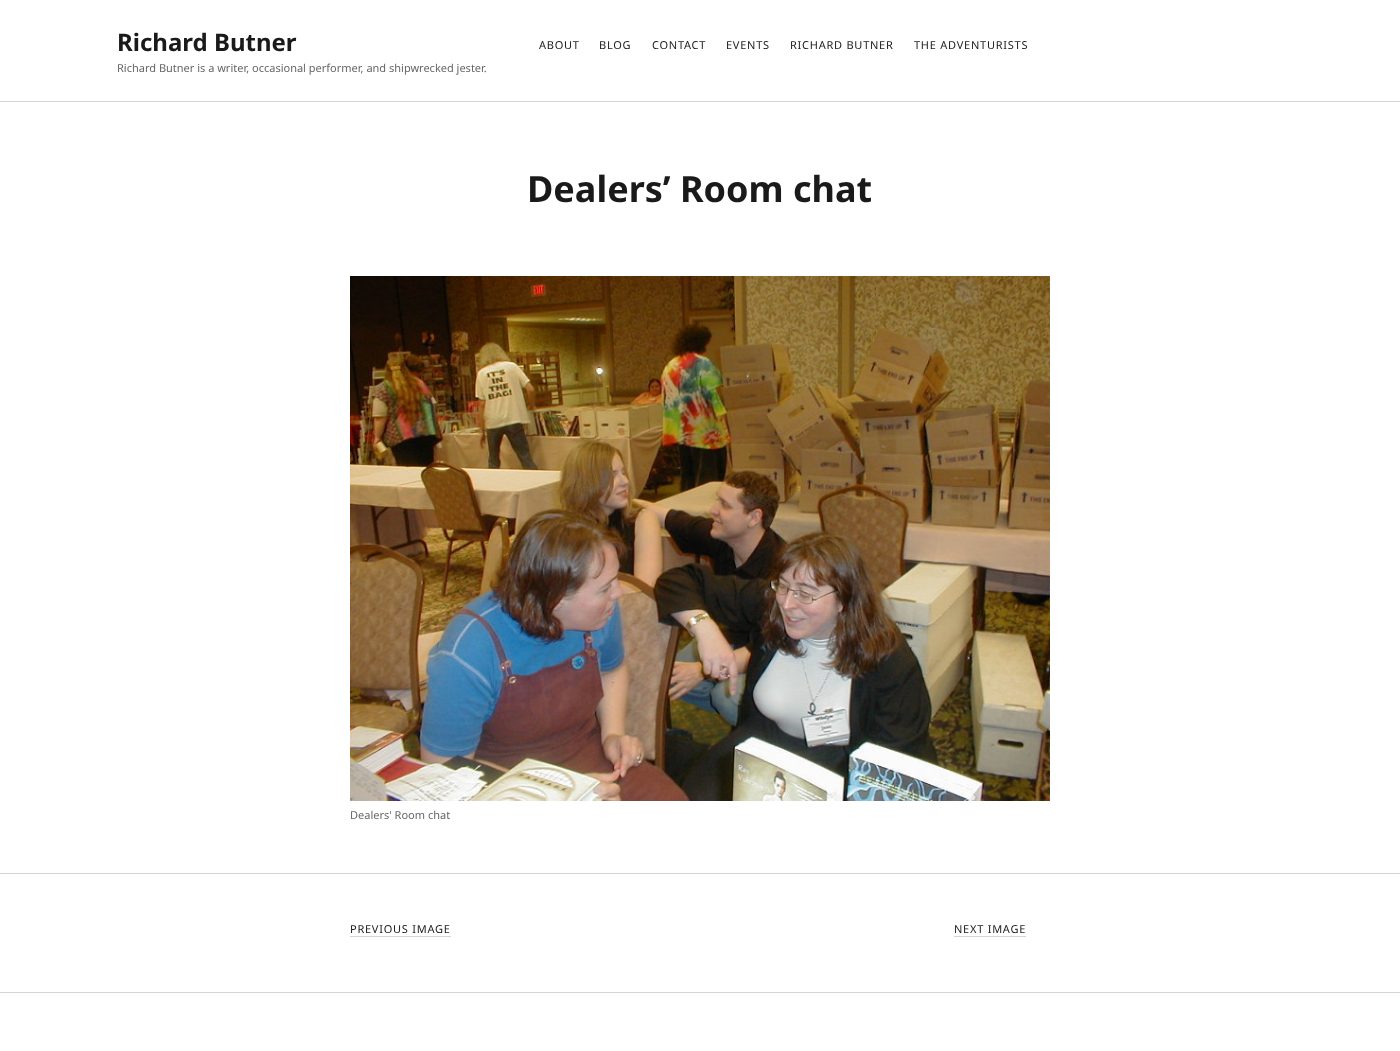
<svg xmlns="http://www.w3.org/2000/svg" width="1400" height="1051">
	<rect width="100%" height="100%" fill="#FFFFFF" />
	<text x="117" y="51" font-family="Noto Sans" font-size="24" font-weight="700" fill="#1A1A1A">Richard Butner</text>
	<text x="117" y="72" font-family="Noto Sans" font-size="11" fill="#666666">Richard Butner is a writer, occasional performer, and shipwrecked jester.</text>
	<g font-family="Noto Sans" font-size="11" letter-spacing="0.75" fill="#1A1A1A">
		<text x="539" y="49">ABOUT</text>
		<text x="599" y="49">BLOG</text>
		<text x="652" y="49">CONTACT</text>
		<text x="726" y="49">EVENTS</text>
		<text x="790" y="49">RICHARD BUTNER</text>
		<text x="914" y="49">THE ADVENTURISTS</text>
	</g>
	<rect x="0" y="101" width="1400" height="1" fill="#D4D4D4" />
	<text x="527" y="202" font-family="Noto Sans" font-size="36" font-weight="700" fill="#1A1A1A">Dealers’ Room chat</text>
	<image x="350" y="276" width="700" height="525" href="assets/img1.png" />
	<text x="350" y="819" font-family="Noto Sans" font-size="11" fill="#666666">Dealers' Room chat</text>
	<rect x="0" y="873" width="1400" height="1" fill="#D4D4D4" />
	<text x="350" y="933" font-family="Noto Sans" font-size="11" letter-spacing="0.75" fill="#1A1A1A">PREVIOUS IMAGE</text>
	<rect x="350" y="936" width="101" height="1" fill="#D4D4D4" />
	<text x="954" y="933" font-family="Noto Sans" font-size="11" letter-spacing="0.75" fill="#1A1A1A">NEXT IMAGE</text>
	<rect x="954" y="936" width="72" height="1" fill="#D4D4D4" />
	<rect x="0" y="992" width="1400" height="1" fill="#D4D4D4" />
</svg>
